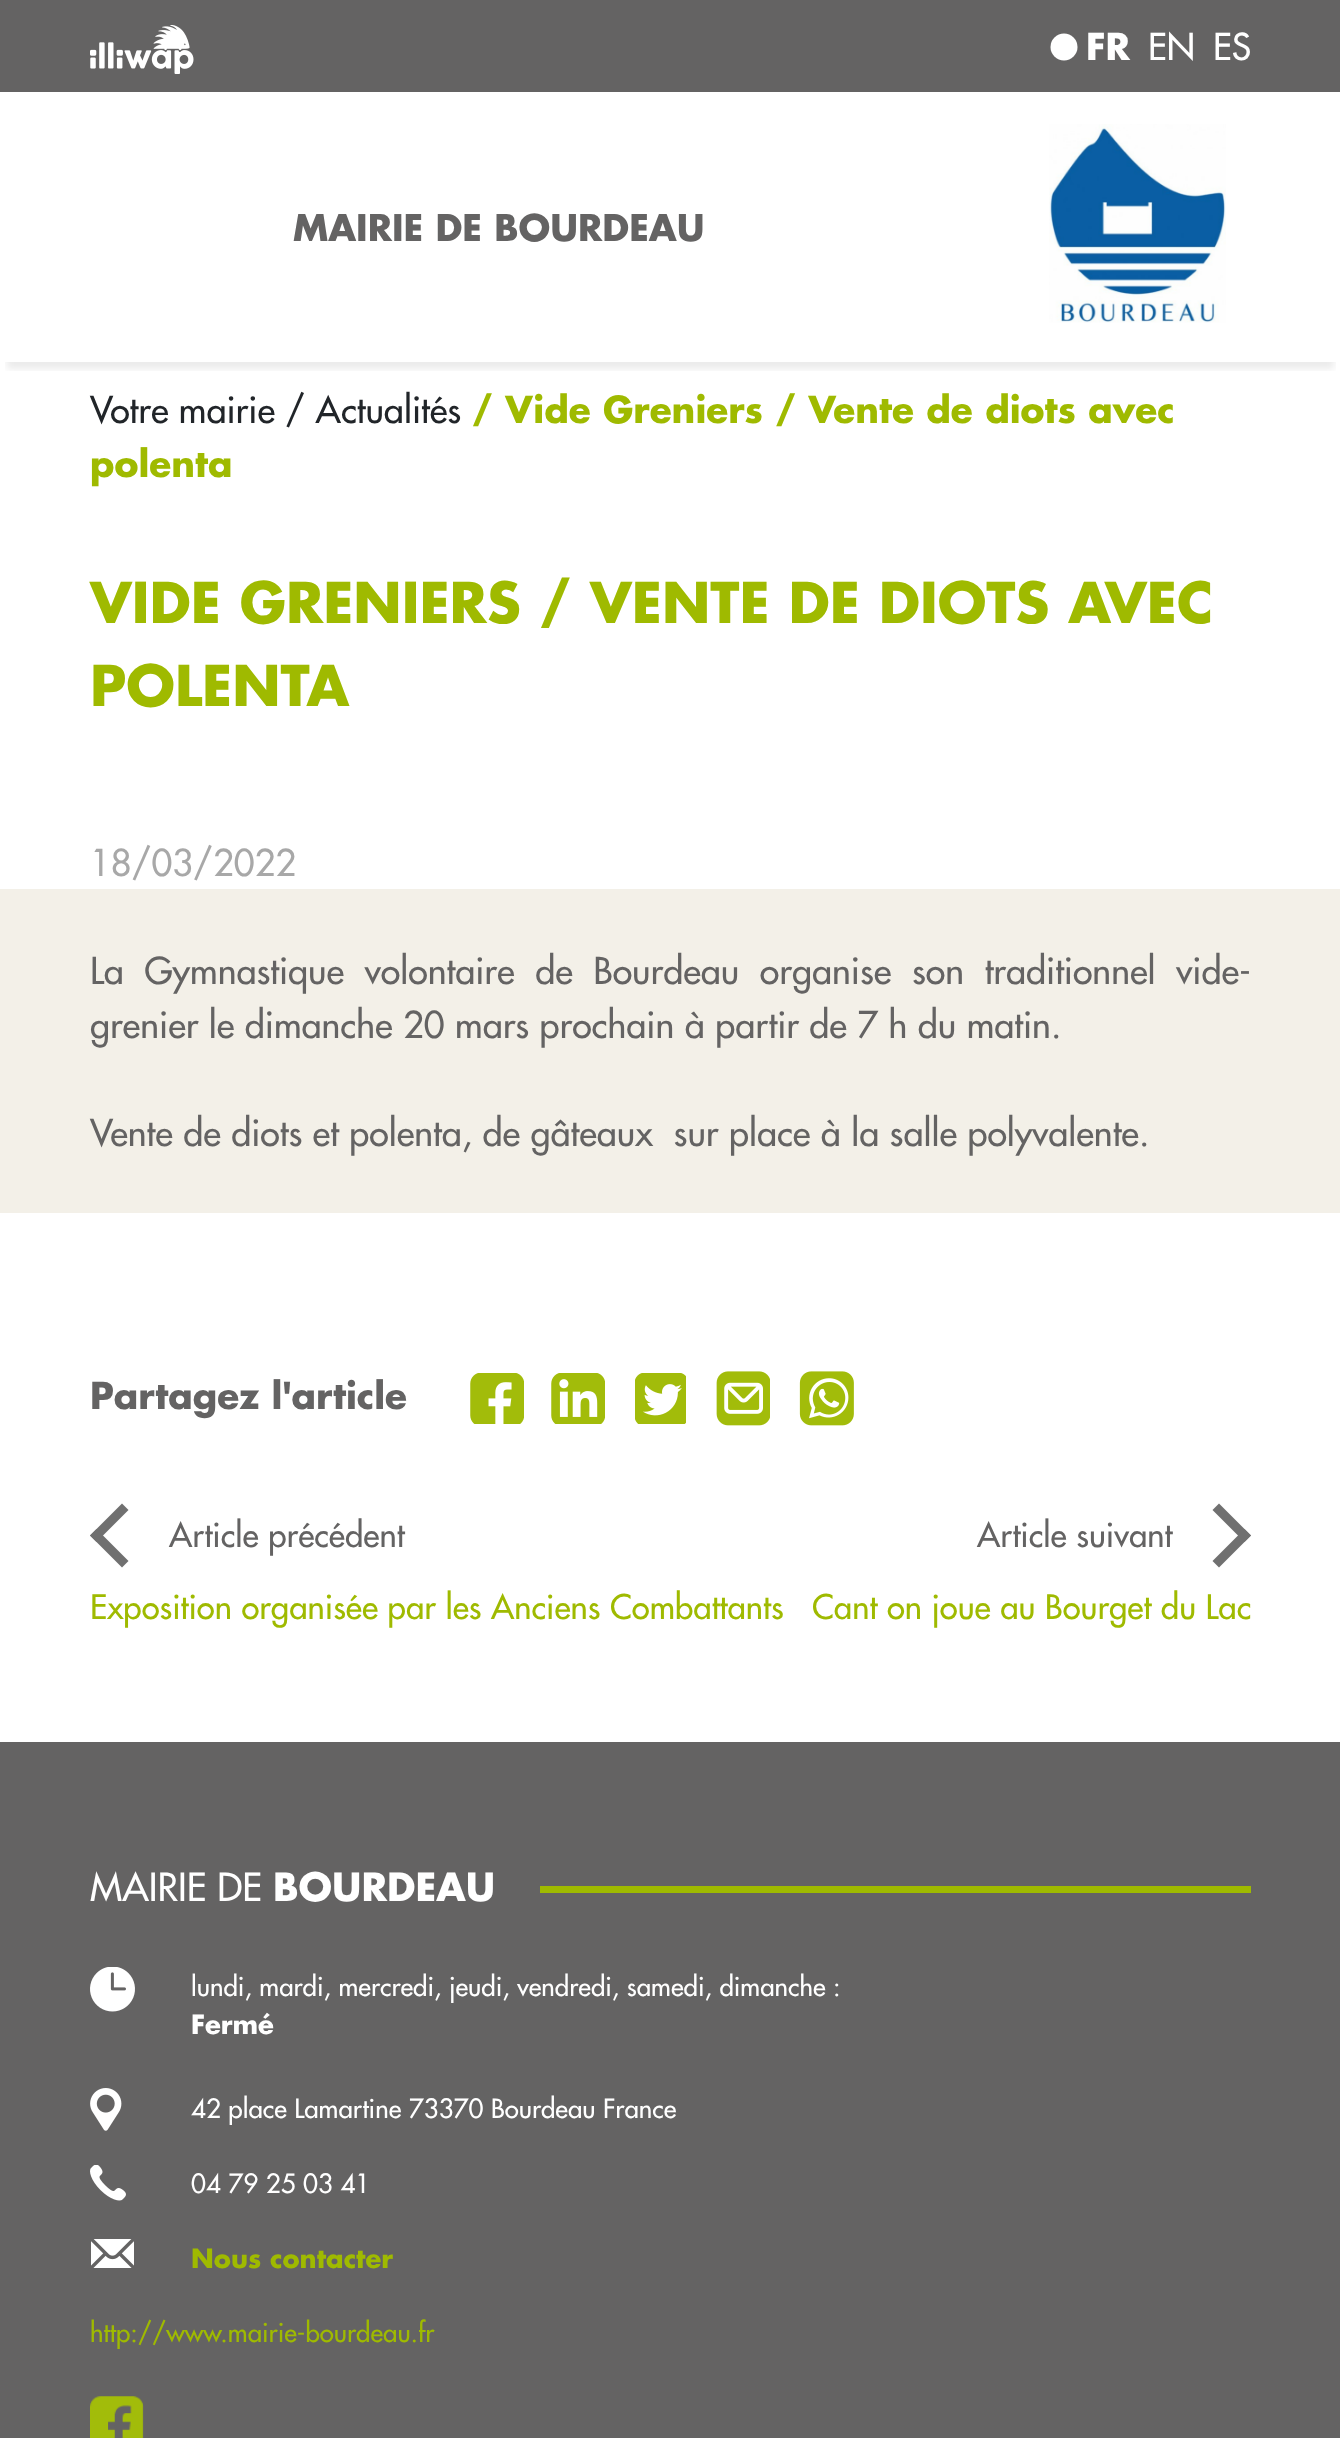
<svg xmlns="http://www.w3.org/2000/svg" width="1340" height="2438">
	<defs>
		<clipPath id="clip1"><rect x="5" y="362" width="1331" height="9" /></clipPath>
	</defs>
	<rect width="100%" height="100%" fill="#FFFFFF" />
	<g clip-path="url(#clip1)">
		<rect x="7" y="20" width="1327" height="349" fill="#000000" fill-opacity="0.08" filter="blur(3.5px)" />
	</g>
	<rect x="0" y="0" width="1340" height="92" fill="#646363" />
	<image x="90" y="25" width="104" height="49" href="assets/img1.png" />
	<circle cx="1064" cy="47" r="13.5" fill="#FFFFFF" />
	<text x="1086" y="60" font-family="Futura" font-size="36" font-weight="700" fill="#FFFFFF">FR</text>
	<g font-family="Futura" font-size="36" fill="#FFFFFF">
		<text x="1148" y="60">EN</text>
		<text x="1213" y="60">ES</text>
	</g>
	<text x="293" y="241" font-family="Futura" font-size="35.75" font-weight="700" fill="#646363">MAIRIE DE BOURDEAU</text>
	<image x="1049" y="124" width="177" height="199" href="assets/img2.png" />
	<text x="90" y="423" font-family="Futura" font-size="36" fill="#212529">Votre mairie / Actualités</text>
	<g font-family="Futura" font-size="36" font-weight="700" fill="#9FBA00">
		<text x="472" y="423">/ Vide Greniers / Vente de diots avec</text>
		<text x="90" y="477">polenta</text>
	</g>
	<g font-family="Futura" font-size="54.85" font-weight="700" fill="#9FBA00">
		<text x="90" y="623">VIDE GRENIERS / VENTE DE DIOTS AVEC</text>
		<text x="90" y="706">POLENTA</text>
	</g>
	<text x="90" y="876" font-family="Futura" font-size="36" fill="#A8A8A8">18/03/2022</text>
	<rect x="0" y="889" width="1340" height="324" fill="#F3F0E8" />
	<g font-family="Futura" font-size="36" fill="#646363">
		<text x="90" y="984" word-spacing="10.25">La Gymnastique volontaire de Bourdeau organise son traditionnel vide-</text>
		<text x="90" y="1038">grenier le dimanche 20 mars prochain à partir de 7 h du matin.</text>
		<text x="90" y="1146" xml:space="preserve">Vente de diots et polenta, de gâteaux  sur place à la salle polyvalente.</text>
	</g>
	<text x="90" y="1409" font-family="Futura" font-size="36" font-weight="700" fill="#646363">Partagez l'article</text>
	<image x="470" y="1373" width="54" height="51" href="assets/img3.png" />
	<image x="551" y="1373" width="54" height="51" href="assets/img4.png" />
	<image x="635" y="1373" width="51" height="51" href="assets/img5.png" />
	<image x="716" y="1371" width="54" height="55" href="assets/img6.png" />
	<image x="799" y="1371" width="55" height="55" href="assets/img7.png" />
	<path d="M122 1567.5L90 1535.5L96.5 1529L128.5 1561Z" fill="#707070" />
	<path d="M90 1535.5L122 1503.5L128.5 1510L96.5 1542Z" fill="#707070" />
	<text x="169" y="1547" font-family="Futura" font-size="33" fill="#646363">Article précédent</text>
	<path d="M1219 1503.5L1251 1535.5L1244.5 1542L1212.5 1510Z" fill="#707070" />
	<path d="M1251 1535.5L1219 1567.5L1212.5 1561L1244.5 1529Z" fill="#707070" />
	<text x="977" y="1547" font-family="Futura" font-size="33" fill="#646363">Article suivant</text>
	<g font-family="Futura" font-size="33" fill="#9FBA00">
		<text x="90" y="1619">Exposition organisée par les Anciens Combattants</text>
		<text x="812" y="1619">Cant on joue au Bourget du Lac</text>
	</g>
	<rect x="0" y="1742" width="1340" height="696" fill="#646363" />
	<rect x="540" y="1886" width="711" height="7" fill="#9FBA00" />
	<text x="90" y="1901" font-family="Futura" font-size="37.75" fill="#FFFFFF">MAIRIE DE</text>
	<text x="273" y="1901" font-family="Futura" font-size="37.75" font-weight="700" fill="#FFFFFF">BOURDEAU</text>
	<image x="90" y="1967" width="45" height="45" href="assets/img8.png" />
	<text x="191" y="1996" font-family="Futura" font-size="25.85" fill="#FFFFFF">lundi, mardi, mercredi, jeudi, vendredi, samedi, dimanche :</text>
	<text x="191" y="2034" font-family="Futura" font-size="25.85" font-weight="700" fill="#FFFFFF">Fermé</text>
	<image x="90" y="2088" width="32" height="43" href="assets/img9.png" />
	<text x="191" y="2118" font-family="Futura" font-size="25.85" fill="#FFFFFF">42 place Lamartine 73370 Bourdeau France</text>
	<image x="90" y="2165" width="36" height="36" href="assets/img10.png" />
	<text x="191" y="2193" font-family="Futura" font-size="25.85" fill="#FFFFFF">04 79 25 03 41</text>
	<image x="91" y="2239" width="43" height="29" href="assets/img11.png" />
	<text x="191" y="2268" font-family="Futura" font-size="25.85" font-weight="700" fill="#9FBA00">Nous contacter</text>
	<text x="90" y="2342" font-family="Futura" font-size="25.85" fill="#9FBA00">http://www.mairie-bourdeau.fr</text>
	<image x="90" y="2396" width="54" height="42" href="assets/img12.png" />
</svg>
